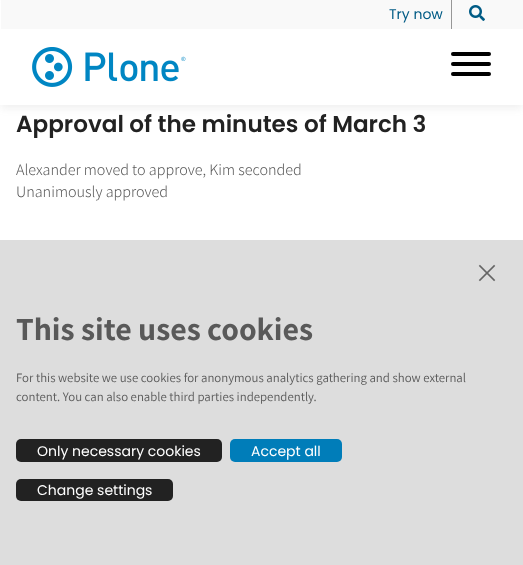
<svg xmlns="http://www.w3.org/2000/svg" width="523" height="565">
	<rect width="100%" height="100%" fill="#FFFFFF" />
	<rect x="1" y="6" width="521" height="103" fill="#777777" fill-opacity="0.1" filter="blur(3.5px)" />
	<rect x="0" y="3" width="523" height="102" fill="#FFFFFF" />
	<rect x="1" y="0" width="522" height="29" fill="#F9F9F9" />
	<text x="389" y="19" font-family="Poppins" font-size="14" fill="#005B85">Try now</text>
	<rect x="451" y="0" width="1" height="29" fill="#979797" />
	<image x="469" y="5" width="16" height="16" href="assets/img1.png" />
	<image x="32" y="47" width="154" height="40" href="assets/img2.png" />
	<rect x="451" y="72" width="40" height="4" rx="2" fill="#000000" />
	<rect x="451" y="52" width="40" height="4" rx="2" fill="#000000" />
	<rect x="451" y="62" width="40" height="4" rx="2" fill="#000000" />
	<text x="16" y="132" font-family="Poppins" font-size="23.1" font-weight="600" fill="#222222">Approval of the minutes of March 3</text>
	<g font-family="Assistant" font-size="16" font-weight="200" fill="#595959">
		<text x="16" y="175">Alexander moved to approve, Kim seconded</text>
		<text x="16" y="197">Unanimously approved</text>
	</g>
	<rect x="0" y="240" width="523" height="325" fill="#DDDDDD" />
	<image x="478" y="264" width="18" height="18" href="assets/img3.png" />
	<text x="16" y="340" font-family="'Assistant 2'" font-size="32" font-weight="200" fill="#595959">This site uses cookies</text>
	<g font-family="'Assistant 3'" font-size="12.8" font-weight="200" fill="#595959">
		<text x="16" y="382">For this website we use cookies for anonymous analytics gathering and show external</text>
		<text x="16" y="401">content. You can also enable third parties independently.</text>
	</g>
	<rect x="16" y="439" width="206" height="23" rx="5" fill="#222222" />
	<text x="37" y="456" font-family="Poppins" font-size="14" fill="#FFFFFF">Only necessary cookies</text>
	<rect x="230" y="439" width="112" height="23" rx="5" fill="#007DB9" />
	<text x="251" y="456" font-family="Poppins" font-size="14" fill="#FFFFFF">Accept all</text>
	<rect x="16" y="479" width="157" height="22" rx="5" fill="#222222" />
	<text x="37" y="495" font-family="Poppins" font-size="14" fill="#FFFFFF">Change settings</text>
</svg>
